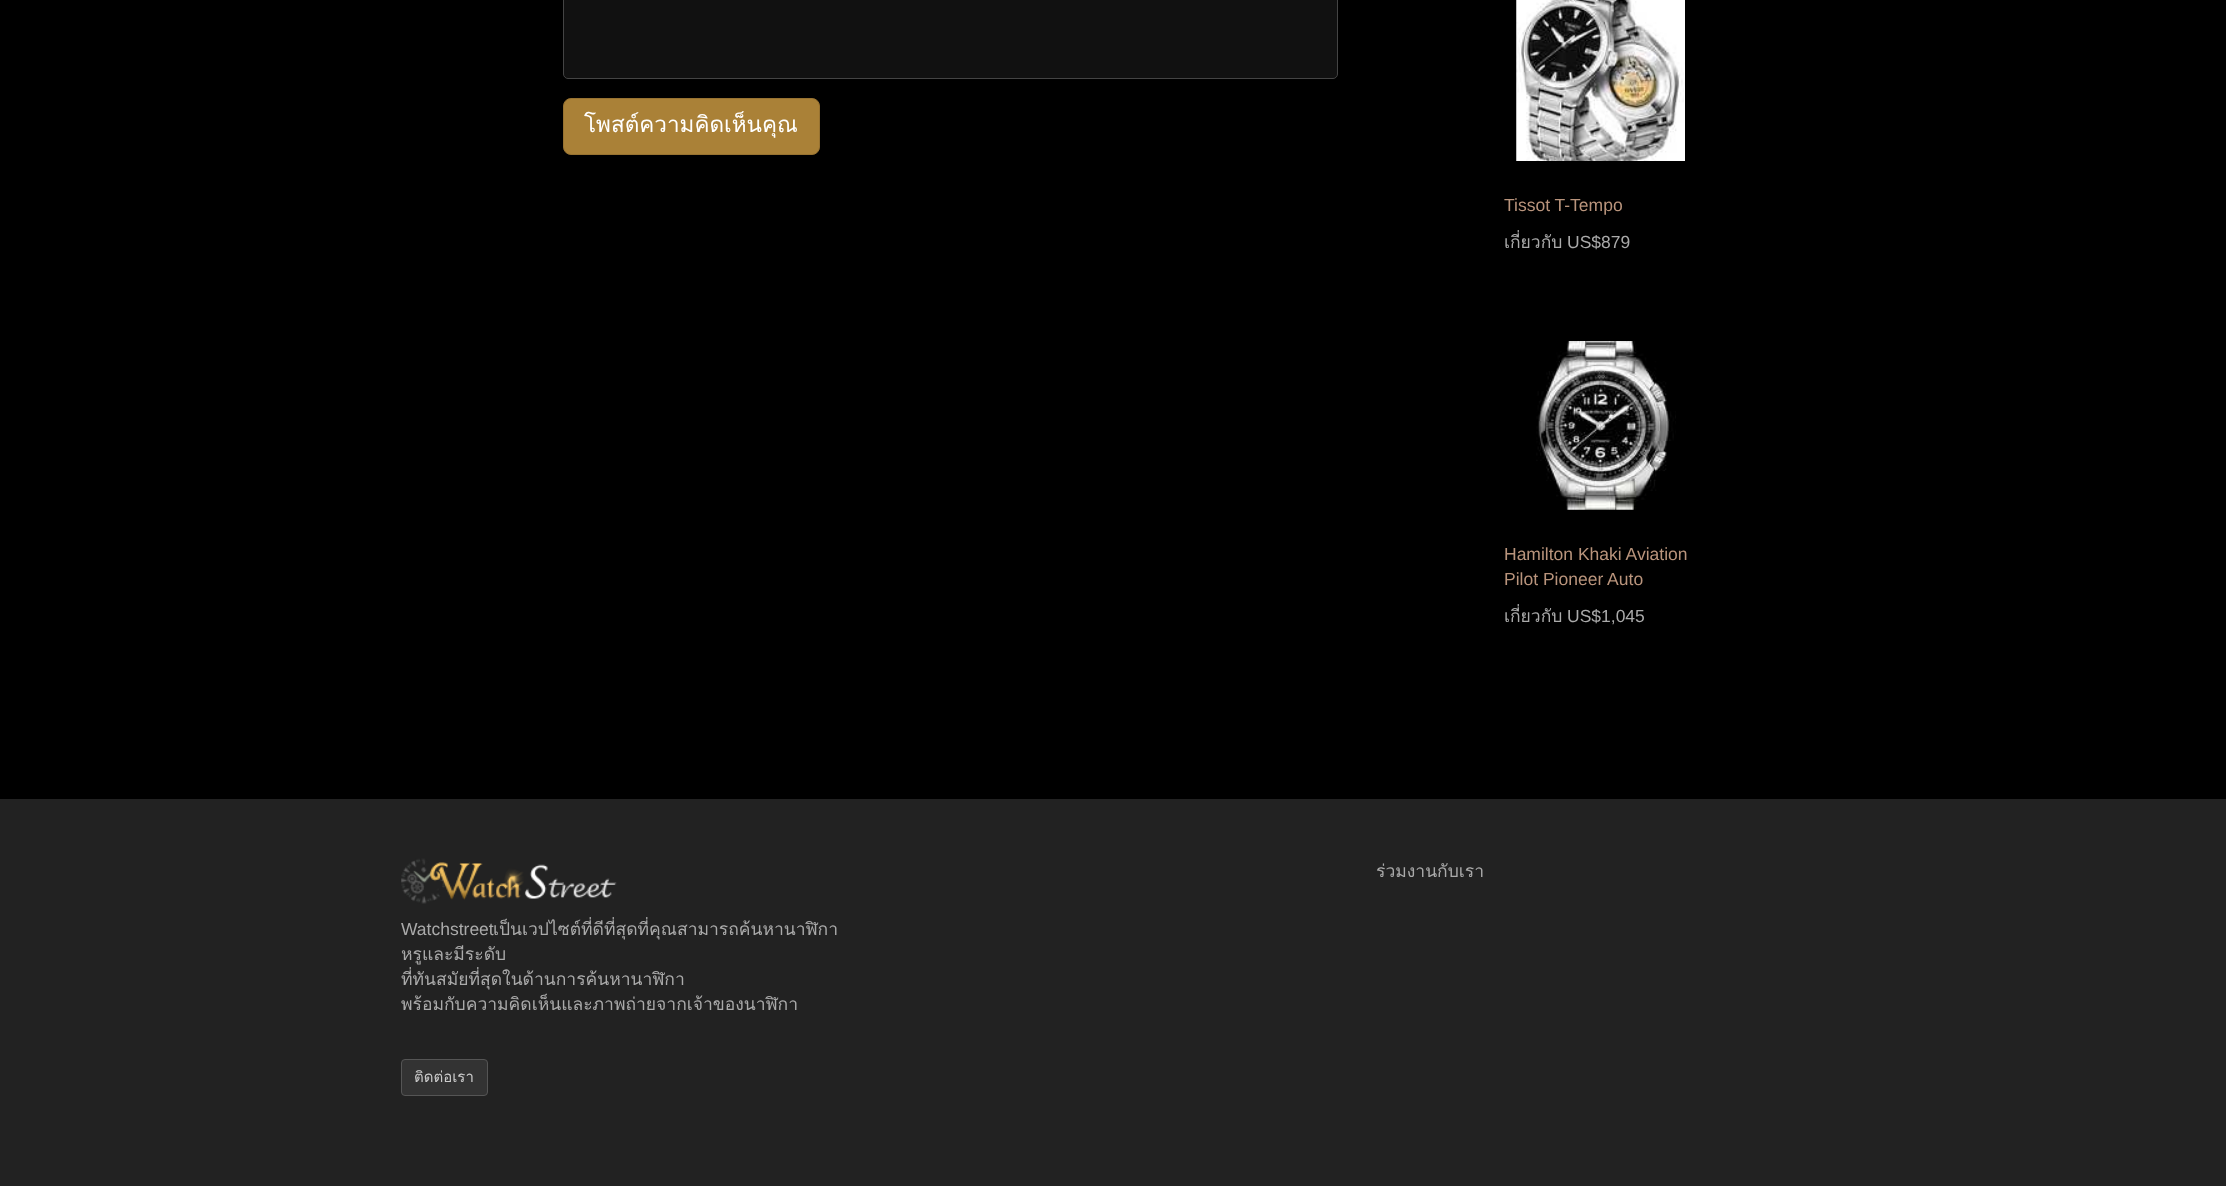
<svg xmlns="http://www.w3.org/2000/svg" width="2226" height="1186">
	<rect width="100%" height="100%" fill="#000000" />
	<rect x="563.5" y="-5.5" width="774" height="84" rx="4.5" fill="#111111" stroke="#444444" />
	<rect x="563.5" y="98.5" width="256" height="56" rx="7.5" fill="#AA8137" stroke="#977231" />
	<text x="584" y="132" font-family="Loma" font-size="22.5" fill="#FFFFFF">โพสต์ความคิดเห็นคุณ</text>
	<image x="1516" y="0" width="169" height="161" href="assets/img1.png" />
	<text x="1504" y="211" font-family="Liberation Sans" font-size="17.5" fill="#B9947C">Tissot T-Tempo</text>
	<text x="1504" y="248" font-family="Loma" font-size="17.5" fill="#AAAAAA">เกี่ยวกับ</text>
	<text x="1567" y="248" font-family="Liberation Sans" font-size="17.5" fill="#AAAAAA">US$879</text>
	<image x="1536" y="341" width="140" height="169" href="assets/img2.png" />
	<g font-family="Liberation Sans" font-size="17.5" fill="#B9947C">
		<text x="1504" y="560">Hamilton Khaki Aviation</text>
		<text x="1504" y="585">Pilot Pioneer Auto</text>
	</g>
	<text x="1504" y="622" font-family="Loma" font-size="17.5" fill="#AAAAAA">เกี่ยวกับ</text>
	<text x="1567" y="622" font-family="Liberation Sans" font-size="17.5" fill="#AAAAAA">US$1,045</text>
	<rect x="0" y="799" width="2226" height="387" fill="#222222" />
	<text x="1376" y="877" font-family="Loma" font-size="17.5" fill="#AAAAAA">ร่วมงานกับเรา</text>
	<image x="401" y="858" width="216" height="46" href="assets/img3.png" />
	<text x="401" y="935" font-family="Liberation Sans" font-size="17.5" fill="#AAAAAA">Watchstreet</text>
	<g font-family="Loma" font-size="17.5" fill="#AAAAAA">
		<text x="493" y="935">เป็นเวปไซต์ที่ดีที่สุดที่คุณสามารถค้นหานาฬิกา</text>
		<text x="401" y="960">หรูและมีระดับ</text>
		<text x="401" y="985">ที่ทันสมัยที่สุดในด้านการค้นหานาฬิกา</text>
		<text x="401" y="1010">พร้อมกับความคิดเห็นและภาพถ่ายจากเจ้าของนาฬิกา</text>
	</g>
	<rect x="401.5" y="1059.5" width="86" height="36" rx="3.5" fill="#333333" stroke="#555555" />
	<text x="414" y="1082" font-family="Loma" font-size="15" fill="#CCCCCC">ติดต่อเรา</text>
</svg>
